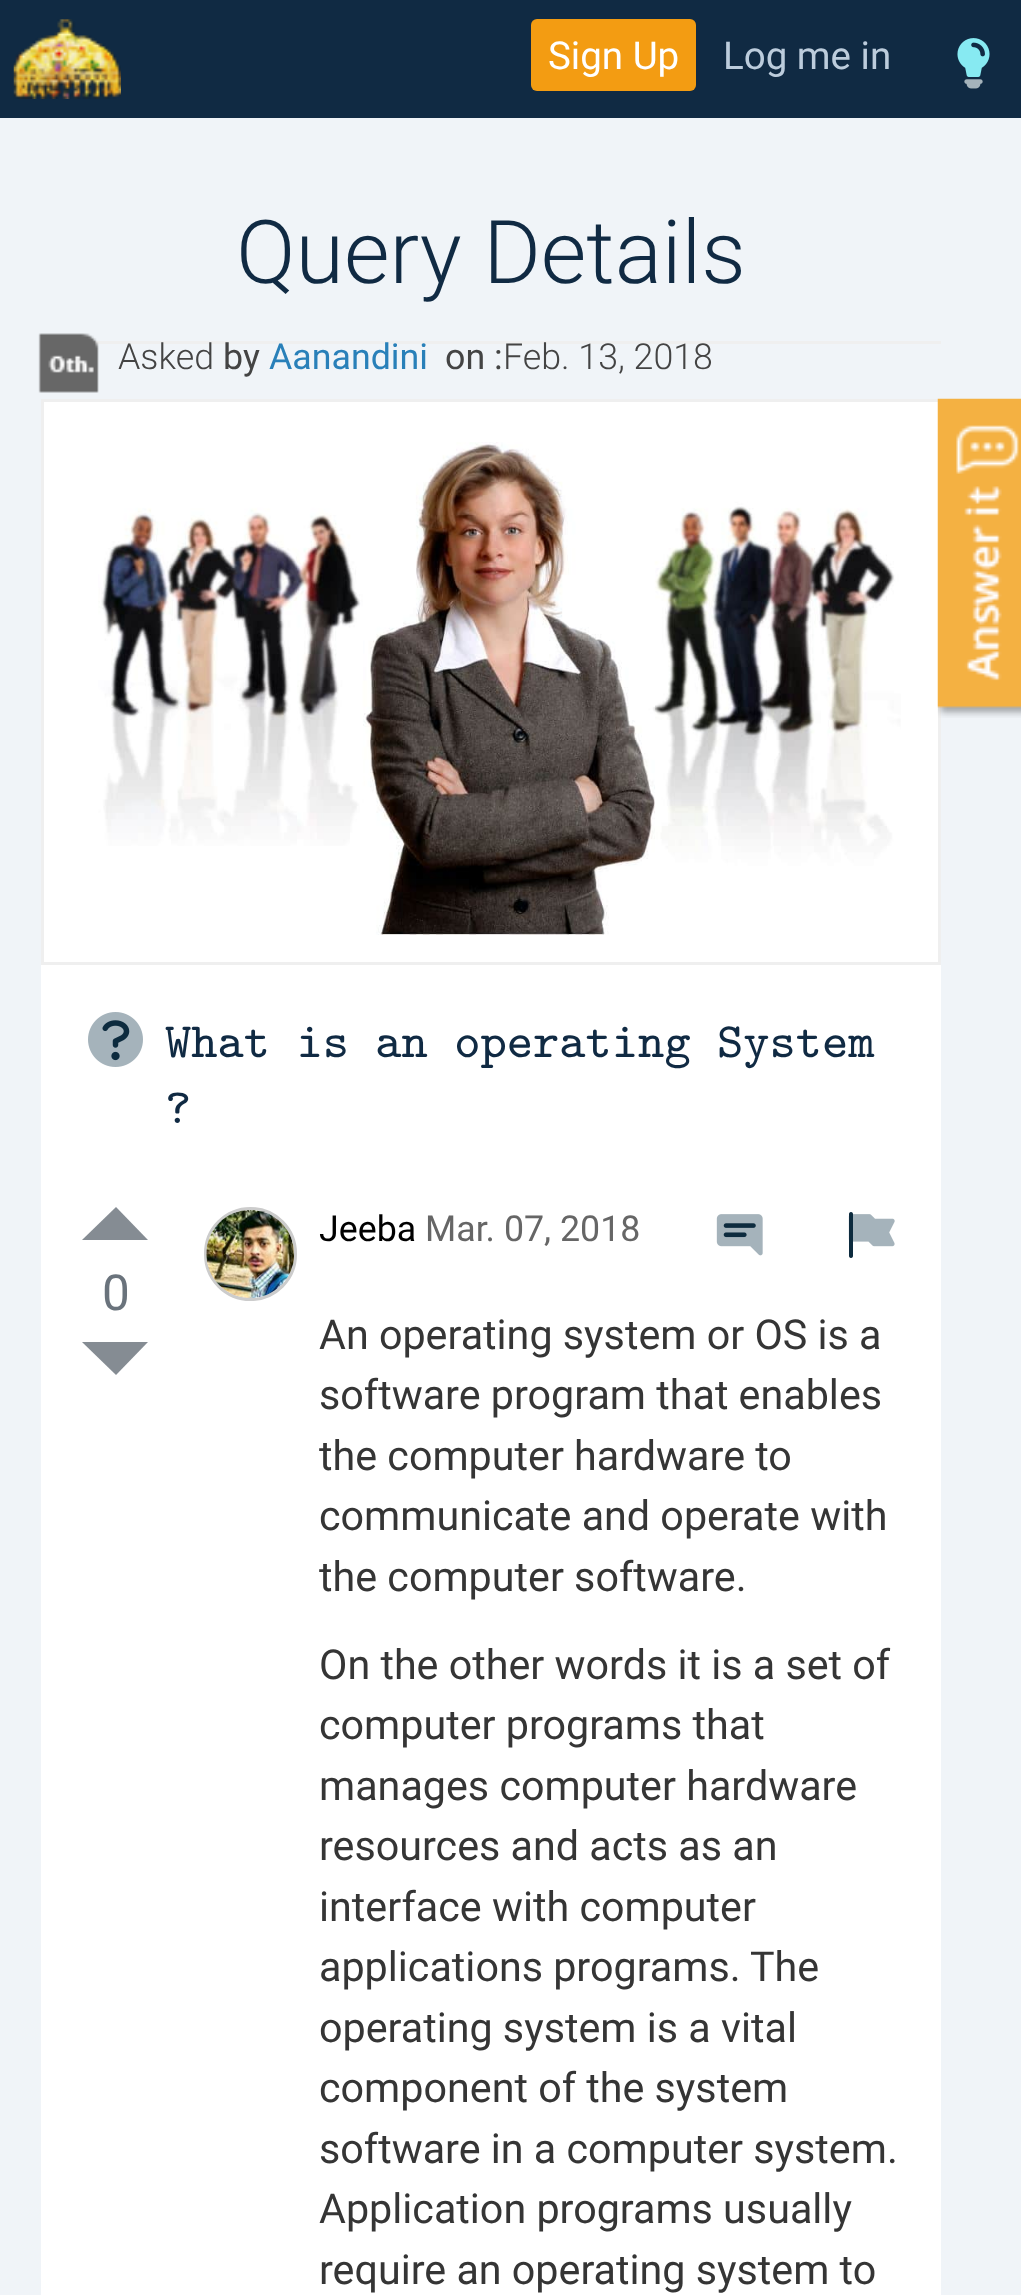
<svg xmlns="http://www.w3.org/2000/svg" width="1021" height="2295">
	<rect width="100%" height="100%" fill="#F0F4F8" />
	<rect x="0" y="0" width="1021" height="118" fill="#102A43" />
	<image x="13" y="19" width="108" height="80" href="assets/img1.png" />
	<rect x="531" y="19" width="165" height="72" rx="6" fill="#F39C12" />
	<text x="548" y="69" font-family="Roboto" font-size="38.5" fill="#FFFFFF">Sign Up</text>
	<text x="723" y="69" font-family="Roboto" font-size="38.5" fill="#BCCCDC">Log me in</text>
	<image x="957" y="38" width="33" height="51" href="assets/img2.png" />
	<rect x="92" y="341" width="849" height="3" fill="#EFEFEF" />
	<text x="236" y="283" font-family="Roboto" font-size="88" font-weight="300" fill="#102A43">Query Details</text>
	<image x="38" y="333" width="61" height="60" href="assets/img3.png" />
	<text x="118" y="369" font-family="Roboto" font-size="35.75" font-weight="300" fill="#444444">Asked</text>
	<text x="223" y="369" font-family="Roboto" font-size="35.75" fill="#444444">by</text>
	<text x="269" y="369" font-family="Roboto" font-size="35.75" fill="#2980B9">Aanandini</text>
	<text x="445" y="369" font-family="Roboto" font-size="35.75" fill="#444444">on :</text>
	<text x="503" y="369" font-family="Roboto" font-size="35.75" font-weight="300" fill="#444444">Feb. 13, 2018</text>
	<rect x="42.5" y="400.5" width="897" height="563" fill="#FFFFFF" stroke="#EFEFEF" stroke-width="3" />
	<image x="98" y="442" width="803" height="493" href="assets/img4.png" />
	<image x="937" y="398" width="84" height="320" href="assets/img5.png" />
	<rect x="41" y="965" width="900" height="1330" fill="#FFFFFF" />
	<image x="88" y="1012" width="55" height="55" href="assets/img6.png" />
	<g font-family="Latin Modern Mono" font-size="49.5" fill="#102A43">
		<text x="165" y="1057">What is an operating System</text>
		<text x="165" y="1123">?</text>
	</g>
	<path d="M148 1240H82L116 1207Z" fill="#858C93" />
	<text x="102" y="1310" font-family="Roboto" font-size="49.5" fill="#6A737C">0</text>
	<path d="M82 1342H148L116 1375Z" fill="#858C93" />
	<rect x="205.5" y="1208.5" width="90" height="91" rx="45" fill="none" stroke="#CCCCCC" stroke-width="3" />
	<image x="206" y="1210" width="89" height="88" href="assets/img7.png" />
	<image x="716" y="1214" width="47" height="42" href="assets/img8.png" />
	<image x="848" y="1212" width="47" height="46" href="assets/img9.png" />
	<text x="319" y="1241" font-family="Roboto" font-size="35.75" fill="#000000">Jeeba</text>
	<text x="425" y="1241" font-family="Roboto" font-size="35.75" fill="#666666">Mar. 07, 2018</text>
	<g font-family="Roboto" font-size="41.25" fill="#353535">
		<text x="319" y="1349">An operating system or OS is a</text>
		<text x="319" y="1409">software program that enables</text>
		<text x="319" y="1470">the computer hardware to</text>
		<text x="319" y="1530">communicate and operate with</text>
		<text x="319" y="1591">the computer software.</text>
		<text x="319" y="1679">On the other words it is a set of</text>
		<text x="319" y="1739">computer programs that</text>
		<text x="319" y="1800">manages computer hardware</text>
		<text x="319" y="1860">resources and acts as an</text>
		<text x="319" y="1921">interface with computer</text>
		<text x="319" y="1981">applications programs. The</text>
		<text x="319" y="2042">operating system is a vital</text>
		<text x="319" y="2102">component of the system</text>
		<text x="319" y="2163">software in a computer system.</text>
		<text x="319" y="2223">Application programs usually</text>
		<text x="319" y="2284">require an operating system to</text>
	</g>
</svg>
